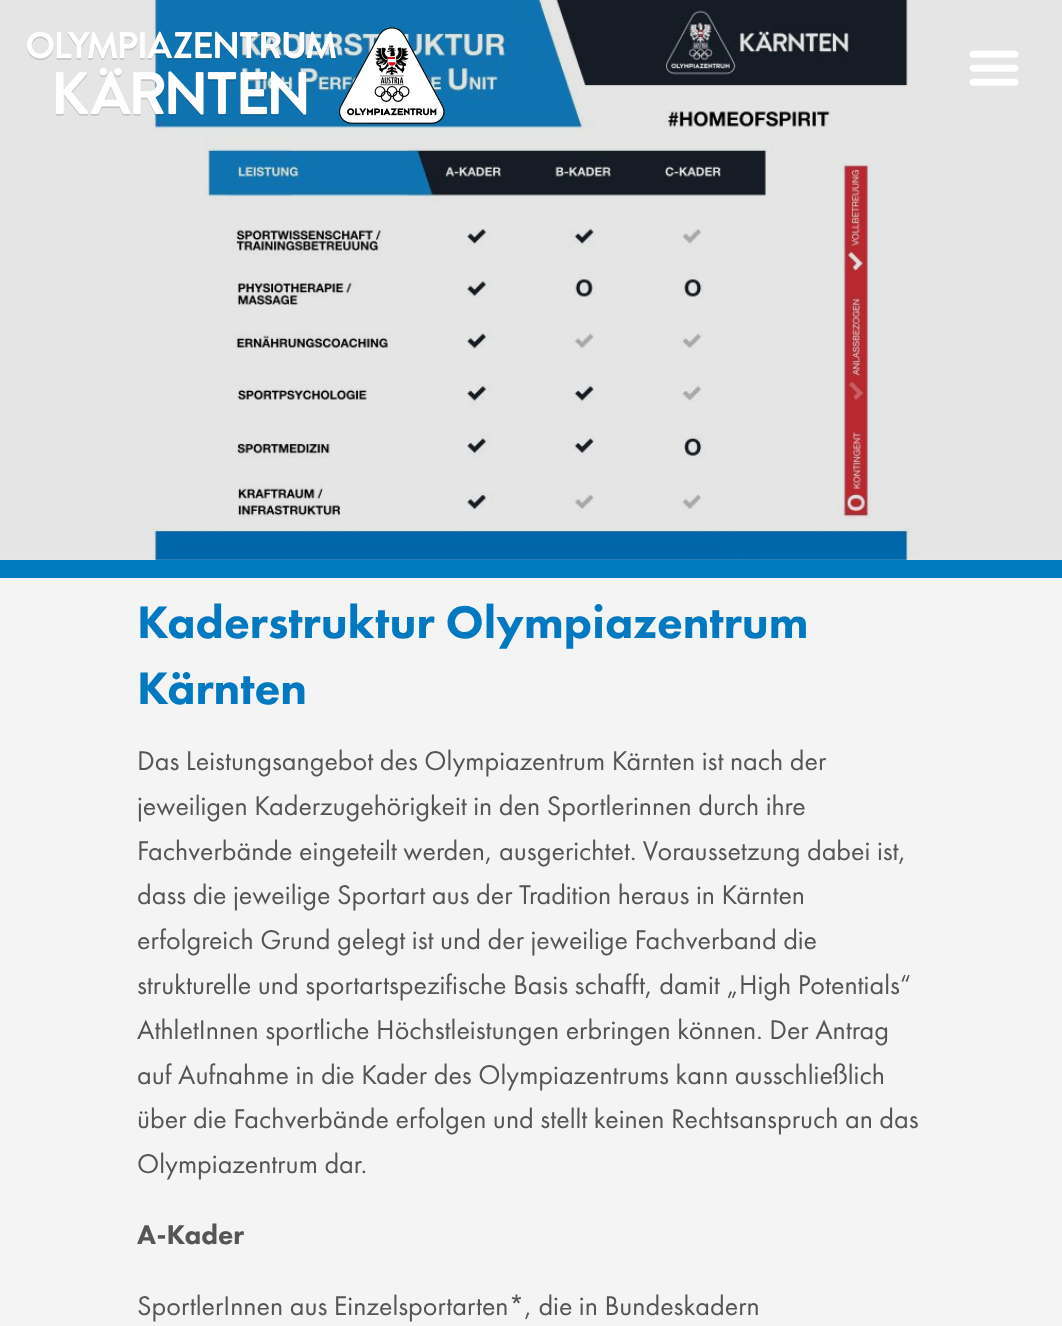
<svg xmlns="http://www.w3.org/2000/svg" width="1062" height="1326">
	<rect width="100%" height="100%" fill="#F4F4F4" />
	<image x="0" y="0" width="1062" height="560" href="assets/img1.png" />
	<image x="27" y="27" width="418" height="97" href="assets/img2.png" />
	<image x="969" y="50" width="50" height="36" href="assets/img3.png" />
	<rect x="0" y="560" width="1062" height="18" fill="#0079C1" />
	<g font-family="Futura PT" font-size="47.25" font-weight="900" fill="#0079C1">
		<text x="137" y="638">Kaderstruktur Olympiazentrum</text>
		<text x="137" y="704">Kärnten</text>
	</g>
	<g font-family="Futura PT" font-size="28" fill="#555555">
		<text x="137" y="770">Das Leistungsangebot des Olympiazentrum Kärnten ist nach der</text>
		<text x="137" y="815">jeweiligen Kaderzugehörigkeit in den Sportlerinnen durch ihre</text>
		<text x="137" y="860">Fachverbände eingeteilt werden, ausgerichtet. Voraussetzung dabei ist,</text>
		<text x="137" y="904">dass die jeweilige Sportart aus der Tradition heraus in Kärnten</text>
		<text x="137" y="949">erfolgreich Grund gelegt ist und der jeweilige Fachverband die</text>
		<text x="137" y="994">strukturelle und sportartspezifische Basis schafft, damit „High Potentials“</text>
		<text x="137" y="1039">AthletInnen sportliche Höchstleistungen erbringen können. Der Antrag</text>
		<text x="137" y="1084">auf Aufnahme in die Kader des Olympiazentrums kann ausschließlich</text>
		<text x="137" y="1128">über die Fachverbände erfolgen und stellt keinen Rechtsanspruch an das</text>
		<text x="137" y="1173">Olympiazentrum dar.</text>
	</g>
	<text x="137" y="1244" font-family="Futura PT" font-size="28" font-weight="900" fill="#555555">A-Kader</text>
	<text x="137" y="1315" font-family="Futura PT" font-size="28" fill="#555555">SportlerInnen aus Einzelsportarten*, die in Bundeskadern</text>
</svg>
